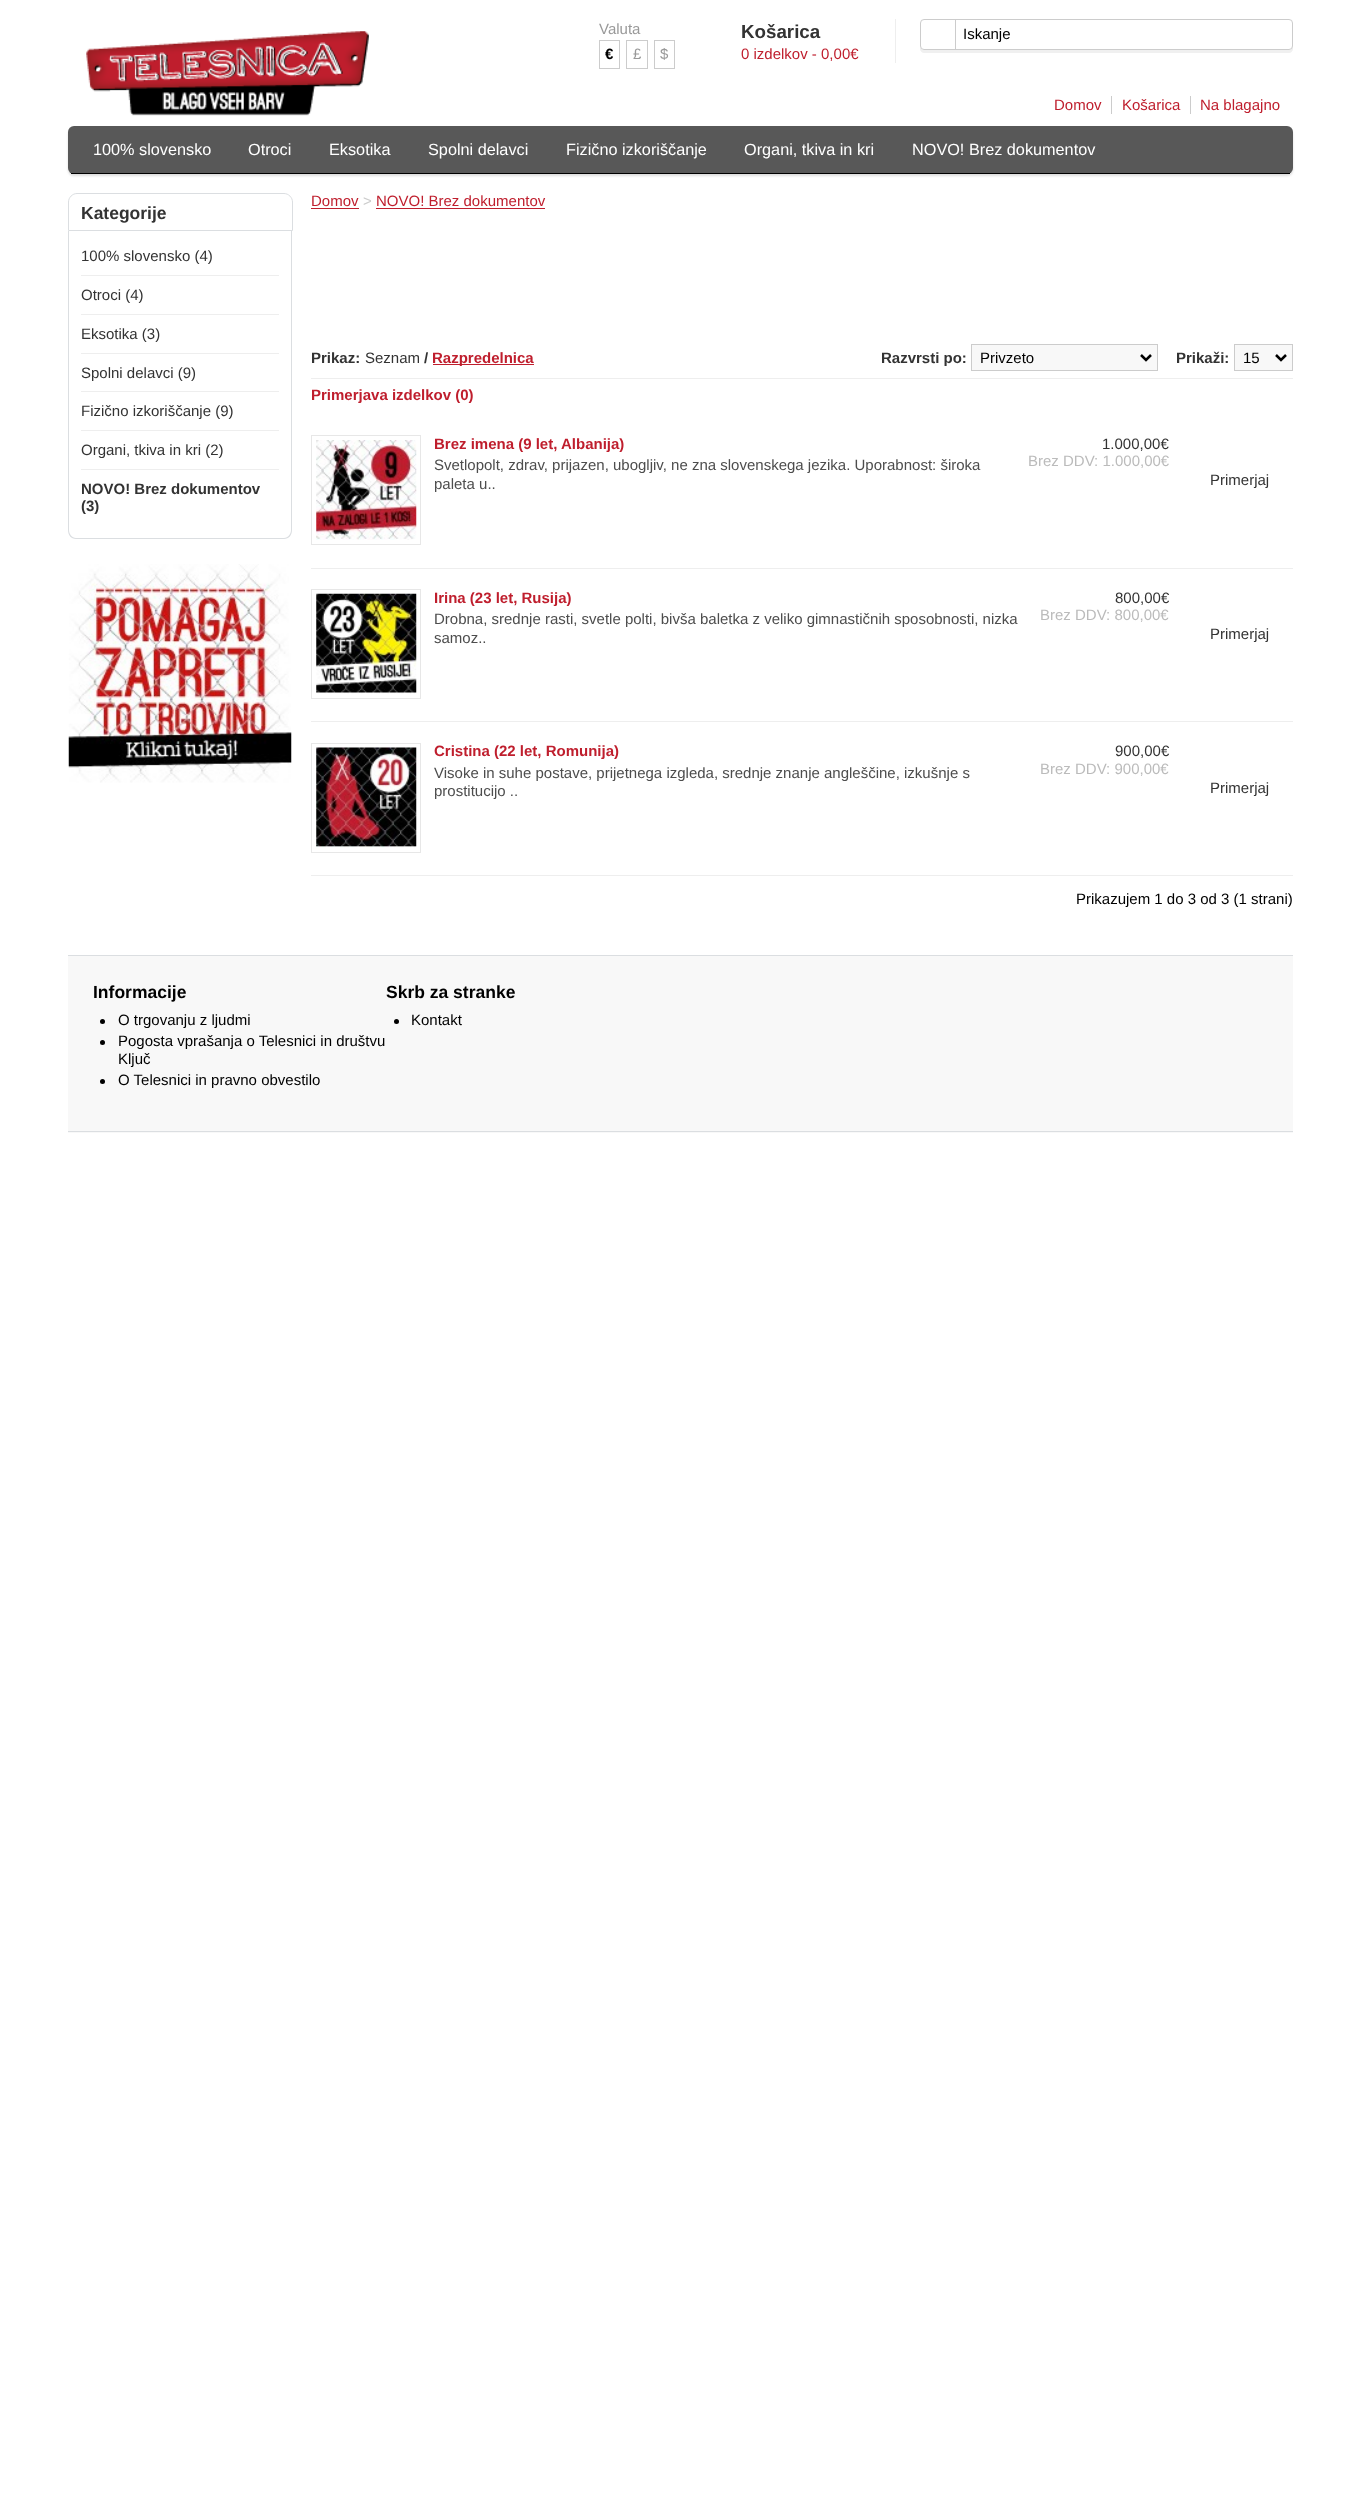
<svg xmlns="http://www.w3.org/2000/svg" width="1360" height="2519">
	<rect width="100%" height="100%" fill="#FFFFFF" />
	<image x="86" y="31" width="283" height="85" href="assets/img1.png" />
	<text x="599" y="34" font-family="Liberation Sans" font-size="15" fill="#999999">Valuta</text>
	<rect x="599.5" y="40.5" width="20" height="28" fill="none" stroke="#CCCCCC" />
	<text x="605" y="59" font-family="Liberation Sans" font-size="15" font-weight="700" fill="#000000">€</text>
	<rect x="626.5" y="40.5" width="21" height="28" fill="none" stroke="#CCCCCC" />
	<text x="633" y="59" font-family="Liberation Sans" font-size="15" fill="#999999">£</text>
	<rect x="654.5" y="40.5" width="20" height="28" fill="none" stroke="#CCCCCC" />
	<text x="660" y="59" font-family="Liberation Sans" font-size="15" fill="#999999">$</text>
	<rect x="895" y="19" width="1" height="44" fill="#EEEEEE" />
	<text x="741" y="38" font-family="Liberation Sans" font-size="18.75" font-weight="700" fill="#333333">Košarica</text>
	<text x="741" y="59" font-family="Liberation Sans" font-size="15" fill="#BF1E2D">0 izdelkov - 0,00€</text>
	<path d="M920 46V49C920 51 922 53 924 53H1289C1291 53 1293 51 1293 49V25L1292 23V46C1292 48 1291 50 1289 50H924C922 50 920 48 920 46Z" fill="#F0F0F0" />
	<rect x="920.5" y="19.5" width="372" height="30" rx="3.5" fill="#FFFFFF" stroke="#CCCCCC" />
	<rect x="955" y="19" width="1" height="30" fill="#CCCCCC" />
	<text x="963" y="39" font-family="Liberation Sans" font-size="15" fill="#000000">Iskanje</text>
	<text x="1054" y="110" font-family="Liberation Sans" font-size="15" fill="#BF1E2D">Domov</text>
	<rect x="1111" y="96" width="1" height="18" fill="#CCCCCC" />
	<text x="1122" y="110" font-family="Liberation Sans" font-size="15" fill="#BF1E2D">Košarica</text>
	<rect x="1190" y="96" width="1" height="18" fill="#CCCCCC" />
	<text x="1200" y="110" font-family="Liberation Sans" font-size="15" fill="#BF1E2D">Na blagajno</text>
	<rect x="68" y="129" width="1225" height="47" rx="6" fill="#DDDDDD" filter="blur(1px)" />
	<rect x="68" y="126" width="1225" height="48" rx="6" fill="#585858" />
	<rect x="71" y="173" width="1219" height="1" fill="#000000" />
	<g font-family="Liberation Sans" font-size="16.25" fill="#FFFFFF">
		<text x="93" y="155">100% slovensko</text>
		<text x="248" y="155">Otroci</text>
		<text x="329" y="155">Eksotika</text>
		<text x="428" y="155">Spolni delavci</text>
		<text x="566" y="155">Fizično izkoriščanje</text>
		<text x="744" y="155">Organi, tkiva in kri</text>
		<text x="912" y="155">NOVO! Brez dokumentov</text>
	</g>
	<path d="M77 193.5H284C288.5 193.5 292.5 197.5 292.5 202V230.5H68.5V202C68.5 197.5 72.5 193.5 77 193.5Z" fill="none" stroke="#DBDEE1" />
	<text x="81" y="219" font-family="Liberation Sans" font-size="17.5" font-weight="700" fill="#333333">Kategorije</text>
	<path d="M68 231H292V530C292 535 289 539 284 539H76C71 539 68 535 68 530ZM69 231H291V530C291 534 288 538 284 538H76C72 538 69 534 69 530Z" fill="#DBDEE1" fill-rule="evenodd" />
	<text x="81" y="261" font-family="Liberation Sans" font-size="15" fill="#333333">100% slovensko (4)</text>
	<rect x="81" y="275" width="198" height="1" fill="#EEEEEE" />
	<text x="81" y="300" font-family="Liberation Sans" font-size="15" fill="#333333">Otroci (4)</text>
	<rect x="81" y="314" width="198" height="1" fill="#EEEEEE" />
	<text x="81" y="339" font-family="Liberation Sans" font-size="15" fill="#333333">Eksotika (3)</text>
	<rect x="81" y="353" width="198" height="1" fill="#EEEEEE" />
	<text x="81" y="378" font-family="Liberation Sans" font-size="15" fill="#333333">Spolni delavci (9)</text>
	<rect x="81" y="391" width="198" height="1" fill="#EEEEEE" />
	<text x="81" y="416" font-family="Liberation Sans" font-size="15" fill="#333333">Fizično izkoriščanje (9)</text>
	<rect x="81" y="430" width="198" height="1" fill="#EEEEEE" />
	<text x="81" y="455" font-family="Liberation Sans" font-size="15" fill="#333333">Organi, tkiva in kri (2)</text>
	<rect x="81" y="469" width="198" height="1" fill="#EEEEEE" />
	<g font-family="Liberation Sans" font-size="15" font-weight="700" fill="#333333">
		<text x="81" y="494">NOVO! Brez dokumentov</text>
		<text x="81" y="511">(3)</text>
	</g>
	<image x="68" y="564" width="224" height="219" href="assets/img2.png" />
	<text x="311" y="206" font-family="Liberation Sans" font-size="15" fill="#BF1E2D">Domov</text>
	<rect x="311" y="208" width="48" height="1" fill="#BF1E2D" />
	<text x="363" y="206" font-family="Liberation Sans" font-size="15" fill="#CCCCCC">&gt;</text>
	<text x="376" y="206" font-family="Liberation Sans" font-size="15" fill="#BF1E2D">NOVO! Brez dokumentov</text>
	<rect x="376" y="208" width="169" height="1" fill="#BF1E2D" />
	<rect x="311" y="378" width="982" height="1" fill="#EEEEEE" />
	<text x="311" y="363" font-family="Liberation Sans" font-size="15" font-weight="700" fill="#333333">Prikaz:</text>
	<text x="365" y="363" font-family="Liberation Sans" font-size="15" fill="#333333">Seznam</text>
	<text x="424" y="363" font-family="Liberation Sans" font-size="15" font-weight="700" fill="#333333">/</text>
	<rect x="433" y="364" width="101" height="1" fill="#BF1E2D" />
	<text x="432" y="363" font-family="Liberation Sans" font-size="15" font-weight="700" fill="#BF1E2D">Razpredelnica</text>
	<text x="881" y="363" font-family="Liberation Sans" font-size="15" font-weight="700" fill="#333333">Razvrsti po:</text>
	<rect x="971.5" y="344.5" width="186" height="26" fill="#F8F8F8" stroke="#CCCCCC" />
	<path d="M1141 355L1146 360L1151 355" fill="none" stroke="#000000" stroke-width="2.5" />
	<text x="980" y="363" font-family="Liberation Sans" font-size="15" fill="#000000">Privzeto</text>
	<text x="1176" y="363" font-family="Liberation Sans" font-size="15" font-weight="700" fill="#333333">Prikaži:</text>
	<rect x="1234.5" y="344.5" width="58" height="26" fill="#F8F8F8" stroke="#CCCCCC" />
	<path d="M1276 355L1281 360L1286 355" fill="none" stroke="#000000" stroke-width="2.5" />
	<text x="1243" y="363" font-family="Liberation Sans" font-size="15" fill="#000000">15</text>
	<text x="311" y="400" font-family="Liberation Sans" font-size="15" font-weight="700" fill="#BF1E2D">Primerjava izdelkov (0)</text>
	<rect x="311.5" y="435.5" width="109" height="109" fill="none" stroke="#E7E7E7" />
	<image x="316" y="440" width="101" height="100" href="assets/img3.png" />
	<text x="434" y="449" font-family="Liberation Sans" font-size="15" font-weight="700" fill="#BF1E2D">Brez imena (9 let, Albanija)</text>
	<text x="1102" y="449" font-family="Liberation Sans" font-size="15" fill="#333333">1.000,00€</text>
	<text x="1028" y="466" font-family="Liberation Sans" font-size="15" fill="#BBBBBB">Brez DDV: 1.000,00€</text>
	<g font-family="Liberation Sans" font-size="15" fill="#4D4D4D">
		<text x="434" y="470">Svetlopolt, zdrav, prijazen, ubogljiv, ne zna slovenskega jezika. Uporabnost: široka</text>
		<text x="434" y="489">paleta u..</text>
	</g>
	<text x="1210" y="485" font-family="Liberation Sans" font-size="15" fill="#333333">Primerjaj</text>
	<rect x="311" y="568" width="982" height="1" fill="#EEEEEE" />
	<rect x="311.5" y="589.5" width="109" height="109" fill="none" stroke="#E7E7E7" />
	<image x="316" y="593" width="101" height="101" href="assets/img4.png" />
	<text x="434" y="603" font-family="Liberation Sans" font-size="15" font-weight="700" fill="#BF1E2D">Irina (23 let, Rusija)</text>
	<text x="1115" y="603" font-family="Liberation Sans" font-size="15" fill="#333333">800,00€</text>
	<text x="1040" y="620" font-family="Liberation Sans" font-size="15" fill="#BBBBBB">Brez DDV: 800,00€</text>
	<g font-family="Liberation Sans" font-size="15" fill="#4D4D4D">
		<text x="434" y="624">Drobna, srednje rasti, svetle polti, bivša baletka z veliko gimnastičnih sposobnosti, nizka</text>
		<text x="434" y="643">samoz..</text>
	</g>
	<text x="1210" y="639" font-family="Liberation Sans" font-size="15" fill="#333333">Primerjaj</text>
	<rect x="311" y="721" width="982" height="1" fill="#EEEEEE" />
	<rect x="311.5" y="743.5" width="109" height="109" fill="none" stroke="#E7E7E7" />
	<image x="316" y="747" width="101" height="101" href="assets/img5.png" />
	<text x="434" y="756" font-family="Liberation Sans" font-size="15" font-weight="700" fill="#BF1E2D">Cristina (22 let, Romunija)</text>
	<text x="1115" y="756" font-family="Liberation Sans" font-size="15" fill="#333333">900,00€</text>
	<text x="1040" y="774" font-family="Liberation Sans" font-size="15" fill="#BBBBBB">Brez DDV: 900,00€</text>
	<g font-family="Liberation Sans" font-size="15" fill="#4D4D4D">
		<text x="434" y="778">Visoke in suhe postave, prijetnega izgleda, srednje znanje angleščine, izkušnje s</text>
		<text x="434" y="796">prostitucijo ..</text>
	</g>
	<text x="1210" y="793" font-family="Liberation Sans" font-size="15" fill="#333333">Primerjaj</text>
	<rect x="311" y="875" width="982" height="1" fill="#EEEEEE" />
	<text x="1076" y="904" font-family="Liberation Sans" font-size="15" fill="#000000">Prikazujem 1 do 3 od 3 (1 strani)</text>
	<rect x="68" y="956" width="1225" height="177" fill="#F8F8F8" />
	<rect x="68" y="955" width="1225" height="1" fill="#DBDEE1" />
	<rect x="68" y="1131" width="1225" height="1" fill="#DBDEE1" />
	<text x="93" y="998" font-family="Liberation Sans" font-size="17.5" font-weight="700" fill="#000000">Informacije</text>
	<circle cx="102.5" cy="1021.5" r="2.5" fill="#000000" />
	<text x="118" y="1025" font-family="Liberation Sans" font-size="15" fill="#000000">O trgovanju z ljudmi</text>
	<circle cx="102.5" cy="1042.5" r="2.5" fill="#000000" />
	<g font-family="Liberation Sans" font-size="15" fill="#000000">
		<text x="118" y="1046">Pogosta vprašanja o Telesnici in društvu</text>
		<text x="118" y="1064">Ključ</text>
	</g>
	<circle cx="102.5" cy="1081.5" r="2.5" fill="#000000" />
	<text x="118" y="1085" font-family="Liberation Sans" font-size="15" fill="#000000">O Telesnici in pravno obvestilo</text>
	<text x="386" y="998" font-family="Liberation Sans" font-size="17.5" font-weight="700" fill="#000000">Skrb za stranke</text>
	<circle cx="396.5" cy="1021.5" r="2.5" fill="#000000" />
	<text x="411" y="1025" font-family="Liberation Sans" font-size="15" fill="#000000">Kontakt</text>
</svg>
